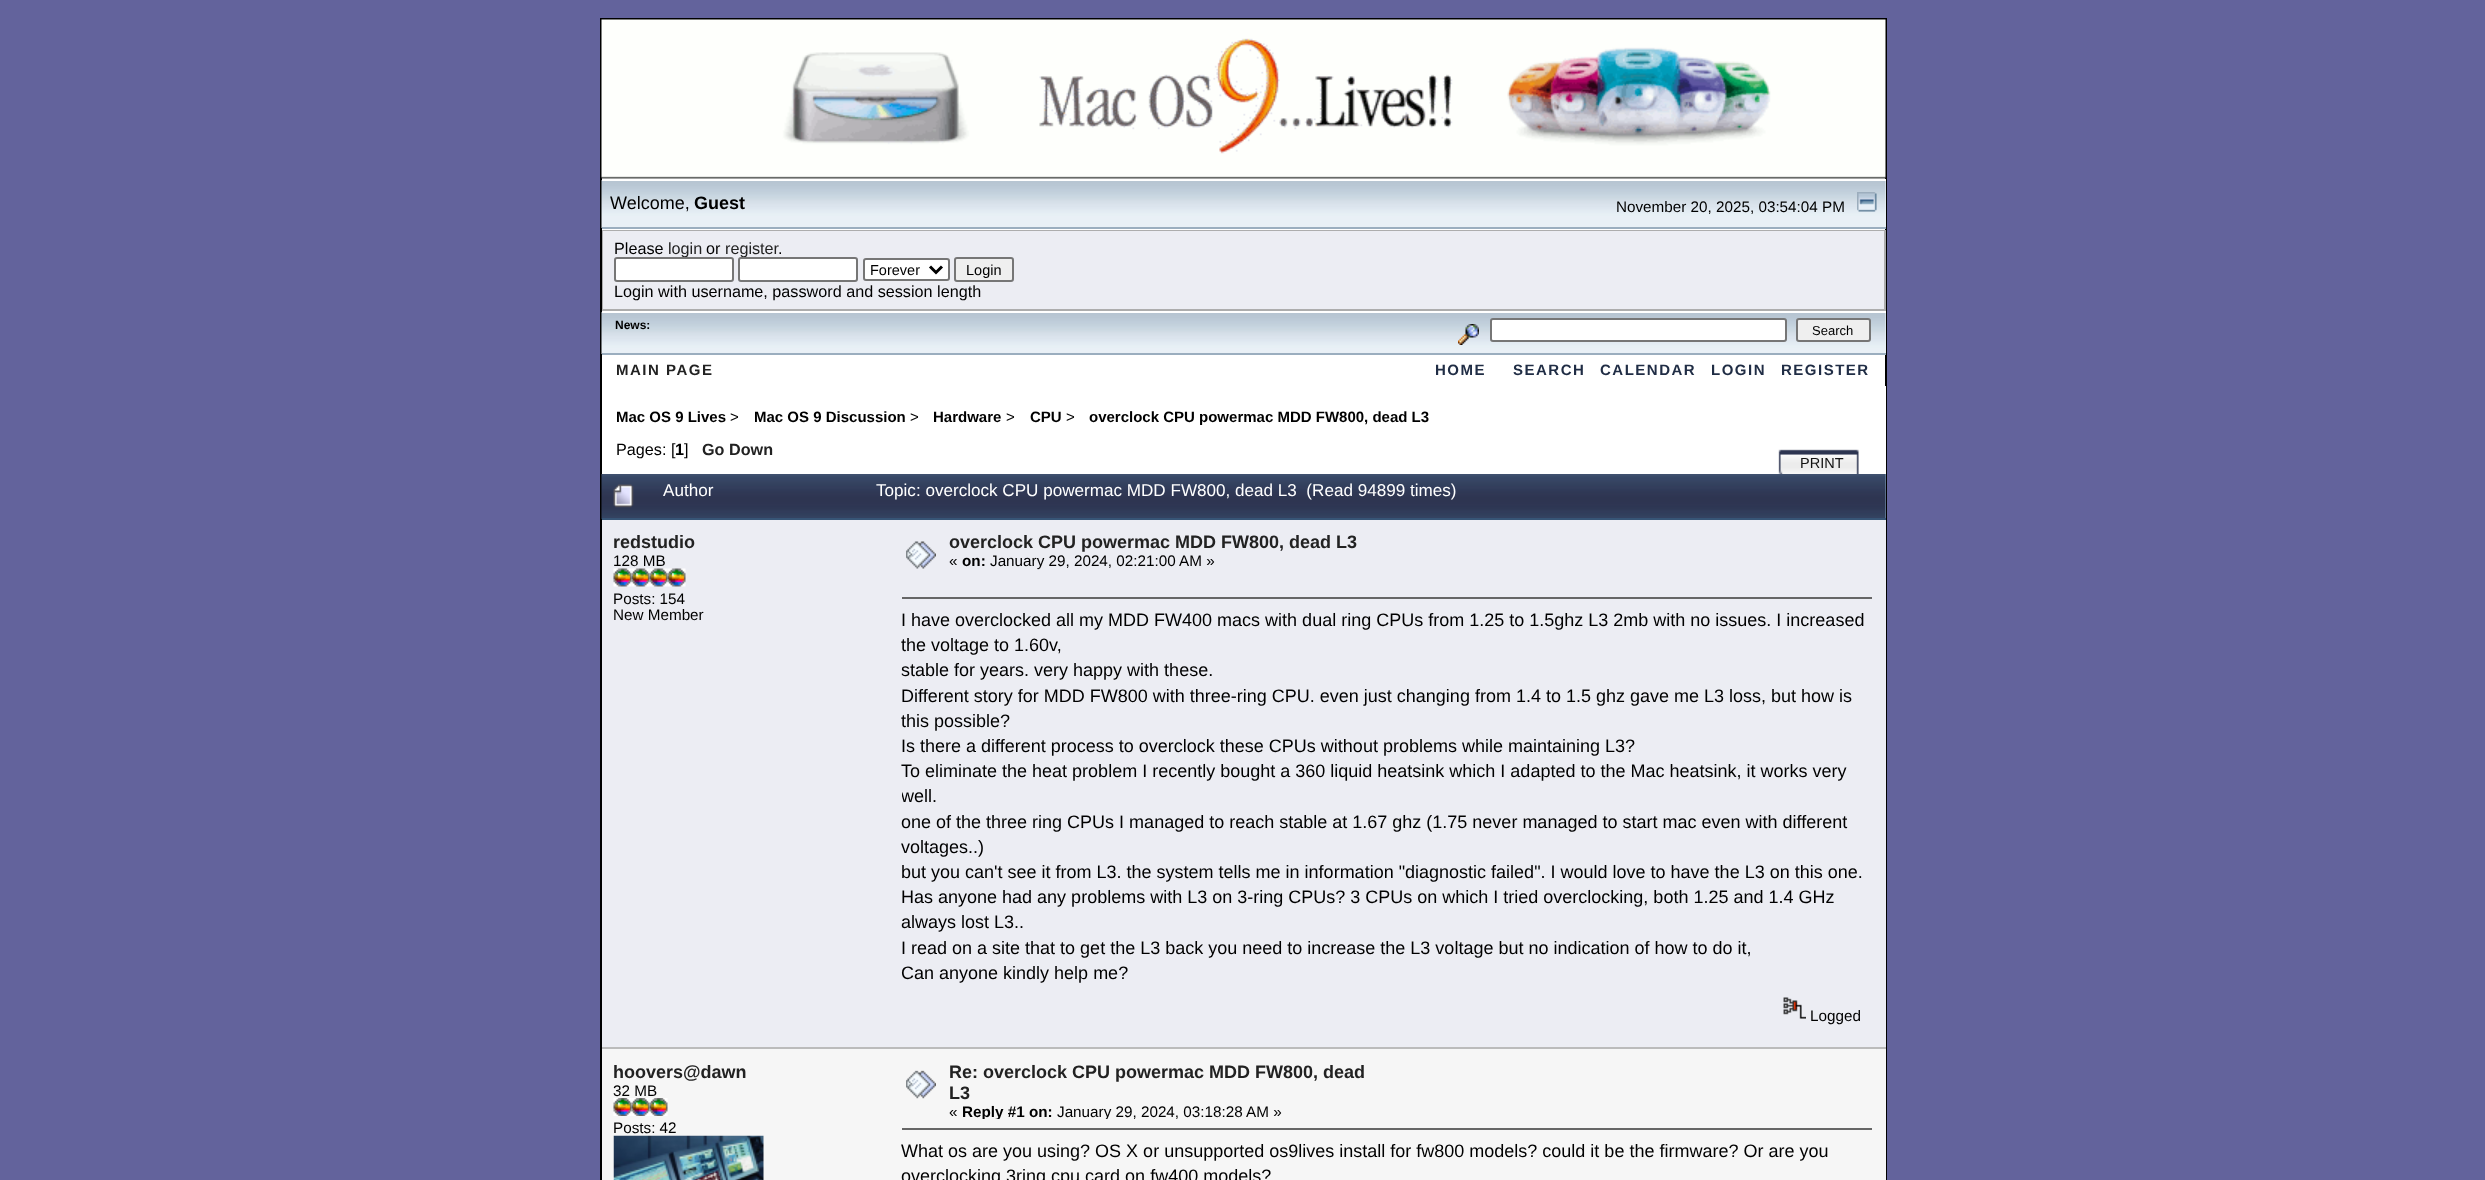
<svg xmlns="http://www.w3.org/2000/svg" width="2485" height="1180">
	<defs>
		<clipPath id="clip1"><rect x="902" y="588" width="970" height="398" /></clipPath>
		<clipPath id="clip2"><rect x="902" y="1061" width="970" height="58" /></clipPath>
	</defs>
	<rect width="100%" height="100%" fill="#63639C" />
	<rect x="602" y="178" width="1283" height="208" fill="#FFFFFF" />
	<rect x="601" y="19" width="1285" height="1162" fill="none" stroke="#000000" stroke-width="2" />
	<image x="601" y="19" width="1285" height="160" href="assets/img1.png" />
	<rect x="1885" y="181" width="1" height="46" fill="#E9F0F6" />
	<image x="601" y="180" width="1285" height="48" href="assets/img2.png" />
	<rect x="602" y="179" width="1284" height="2" fill="#FFFFFF" />
	<rect x="602" y="227" width="1284" height="2" fill="#9BAEBF" />
	<text x="610" y="209" font-family="Liberation Sans" font-size="18" fill="#000000">Welcome,</text>
	<text x="694" y="209" font-family="Liberation Sans" font-size="18" font-weight="700" fill="#000000">Guest</text>
	<text x="1616" y="212" font-family="Liberation Sans" font-size="15.25" fill="#000000">November 20, 2025, 03:54:04 PM</text>
	<image x="1857" y="192" width="20" height="20" href="assets/img3.png" />
	<rect x="602" y="230" width="1284" height="81" fill="#ADADAD" />
	<rect x="603" y="231" width="1281" height="78" fill="#ECEDF3" />
	<text x="614" y="254" font-family="Liberation Sans" font-size="16.2" fill="#000000">Please</text>
	<text x="668" y="254" font-family="Liberation Sans" font-size="16.2" fill="#222222">login</text>
	<text x="706" y="254" font-family="Liberation Sans" font-size="16.2" fill="#000000">or</text>
	<text x="725" y="254" font-family="Liberation Sans" font-size="16.2" fill="#222222">register</text>
	<text x="778" y="254" font-family="Liberation Sans" font-size="16.2" fill="#000000">.</text>
	<rect x="615" y="258" width="118" height="23" rx="2" fill="#FFFFFF" stroke="#767676" stroke-width="2" />
	<rect x="739" y="258" width="118" height="23" rx="2" fill="#FFFFFF" stroke="#767676" stroke-width="2" />
	<rect x="864" y="259" width="85" height="21" rx="2" fill="#FFFFFF" stroke="#767676" stroke-width="2" />
	<path d="M930 266.5L936 272.5L942 266.5" fill="none" stroke="#000000" stroke-width="3" />
	<text x="870" y="275" font-family="Liberation Sans" font-size="14.5" fill="#000000">Forever</text>
	<rect x="955" y="258" width="58" height="23" rx="2" fill="#EFEFEF" stroke="#767676" stroke-width="2" />
	<text x="966" y="275" font-family="Liberation Sans" font-size="14.5" fill="#000000">Login</text>
	<text x="614" y="297" font-family="Liberation Sans" font-size="16.2" fill="#000000">Login with username, password and session length</text>
	<rect x="1885" y="313" width="1" height="40" fill="#E9F0F6" />
	<image x="601" y="312" width="1285" height="42" href="assets/img4.png" />
	<rect x="602" y="311" width="1284" height="2" fill="#FFFFFF" />
	<rect x="602" y="353" width="1284" height="2" fill="#9BAEBF" />
	<text x="615" y="329" font-family="Liberation Sans" font-size="12" font-weight="700" fill="#000000">News:</text>
	<image x="1458" y="324" width="21" height="21" href="assets/img5.png" />
	<rect x="1491" y="319" width="295" height="22" rx="2" fill="#FFFFFF" stroke="#767676" stroke-width="2" />
	<rect x="1797" y="319" width="73" height="22" rx="2" fill="#EFEFEF" stroke="#767676" stroke-width="2" />
	<text x="1812" y="335" font-family="Liberation Sans" font-size="13" fill="#000000">Search</text>
	<text x="616" y="375" font-family="Liberation Sans" font-size="15" font-weight="700" letter-spacing="1.5" fill="#222222">MAIN PAGE</text>
	<g font-family="Liberation Sans" font-size="15" font-weight="700" letter-spacing="1.5" fill="#202D45">
		<text x="1435" y="375">HOME</text>
		<text x="1513" y="375">SEARCH</text>
		<text x="1600" y="375">CALENDAR</text>
		<text x="1711" y="375">LOGIN</text>
		<text x="1781" y="375">REGISTER</text>
	</g>
	<rect x="602" y="386" width="1284" height="88" fill="#FFFFFF" />
	<text x="616" y="422" font-family="Liberation Sans" font-size="15" font-weight="700" fill="#000000">Mac OS 9 Lives</text>
	<text x="730" y="422" font-family="Liberation Sans" font-size="15" fill="#000000">&gt;</text>
	<text x="754" y="422" font-family="Liberation Sans" font-size="15" font-weight="700" fill="#000000">Mac OS 9 Discussion</text>
	<text x="910" y="422" font-family="Liberation Sans" font-size="15" fill="#000000">&gt;</text>
	<text x="933" y="422" font-family="Liberation Sans" font-size="15" font-weight="700" fill="#000000">Hardware</text>
	<text x="1006" y="422" font-family="Liberation Sans" font-size="15" fill="#000000">&gt;</text>
	<text x="1030" y="422" font-family="Liberation Sans" font-size="15" font-weight="700" fill="#000000">CPU</text>
	<text x="1066" y="422" font-family="Liberation Sans" font-size="15" fill="#000000">&gt;</text>
	<text x="1089" y="422" font-family="Liberation Sans" font-size="15" font-weight="700" fill="#000000">overclock CPU powermac MDD FW800, dead L3</text>
	<text x="616" y="455" font-family="Liberation Sans" font-size="16.2" fill="#000000">Pages: [</text>
	<text x="675" y="455" font-family="Liberation Sans" font-size="16.2" font-weight="700" fill="#000000">1</text>
	<text x="684" y="455" font-family="Liberation Sans" font-size="16.2" fill="#000000">]</text>
	<text x="702" y="455" font-family="Liberation Sans" font-size="16.2" font-weight="700" fill="#222222">Go Down</text>
	<image x="1778" y="449" width="59" height="25" href="assets/img6.png" />
	<image x="1837" y="449" width="22" height="25" href="assets/img7.png" />
	<text x="1800" y="468" font-family="Liberation Sans" font-size="14.5" fill="#111111">PRINT</text>
	<rect x="1885" y="474" width="1" height="44" fill="#88A6C0" />
	<image x="601" y="474" width="1285" height="45" href="assets/img8.png" />
	<rect x="602" y="518" width="1284" height="2" fill="#375576" />
	<image x="613" y="484" width="21" height="24" href="assets/img9.png" />
	<g font-family="Liberation Sans" font-size="17.1" fill="#FFFFFF">
		<text x="663" y="496">Author</text>
		<text x="876" y="496" xml:space="preserve">Topic: overclock CPU powermac MDD FW800, dead L3  (Read 94899 times)</text>
	</g>
	<rect x="602" y="520" width="1284" height="527" fill="#ECEDF3" />
	<text x="613" y="548" font-family="Liberation Sans" font-size="18" font-weight="700" fill="#222222">redstudio</text>
	<text x="613" y="566" font-family="Liberation Sans" font-size="15.25" fill="#000000">128 MB</text>
	<image x="613" y="568" width="19" height="19" href="assets/img10.png" />
	<image x="631" y="568" width="19" height="19" href="assets/img11.png" />
	<image x="649" y="568" width="19" height="19" href="assets/img11.png" />
	<image x="667" y="568" width="19" height="19" href="assets/img11.png" />
	<g font-family="Liberation Sans" font-size="15.25" fill="#000000">
		<text x="613" y="604">Posts: 154</text>
		<text x="613" y="620">New Member</text>
	</g>
	<image x="906" y="541" width="30" height="28" href="assets/img12.png" />
	<text x="949" y="548" font-family="Liberation Sans" font-size="18" font-weight="700" fill="#222222">overclock CPU powermac MDD FW800, dead L3</text>
	<text x="949" y="566" font-family="Liberation Sans" font-size="15.25" fill="#000000">«</text>
	<text x="962" y="566" font-family="Liberation Sans" font-size="15.25" font-weight="700" fill="#000000">on:</text>
	<text x="990" y="566" font-family="Liberation Sans" font-size="15.25" fill="#000000">January 29, 2024, 02:21:00 AM »</text>
	<rect x="902" y="597" width="970" height="2" fill="#666666" />
	<g font-family="Liberation Sans" font-size="18" fill="#000000">
		<text x="901" y="626">I have overclocked all my MDD FW400 macs with dual ring CPUs from 1.25 to 1.5ghz L3 2mb with no issues. I increased</text>
		<text x="901" y="651">the voltage to 1.60v,</text>
		<text x="901" y="676">stable for years. very happy with these.</text>
		<text x="901" y="702">Different story for MDD FW800 with three-ring CPU. even just changing from 1.4 to 1.5 ghz gave me L3 loss, but how is</text>
		<text x="901" y="727">this possible?</text>
		<text x="901" y="752">Is there a different process to overclock these CPUs without problems while maintaining L3?</text>
		<text x="901" y="777">To eliminate the heat problem I recently bought a 360 liquid heatsink which I adapted to the Mac heatsink, it works very</text>
	</g>
	<g clip-path="url(#clip1)">
		<text x="901" y="802" font-family="Liberation Sans" font-size="18" fill="#000000">well.</text>
	</g>
	<g font-family="Liberation Sans" font-size="18" fill="#000000">
		<text x="901" y="828">one of the three ring CPUs I managed to reach stable at 1.67 ghz (1.75 never managed to start mac even with different</text>
		<text x="901" y="853">voltages..)</text>
		<text x="901" y="878">but you can't see it from L3. the system tells me in information "diagnostic failed". I would love to have the L3 on this one.</text>
		<text x="901" y="903">Has anyone had any problems with L3 on 3-ring CPUs? 3 CPUs on which I tried overclocking, both 1.25 and 1.4 GHz</text>
		<text x="901" y="928">always lost L3..</text>
		<text x="901" y="954">I read on a site that to get the L3 back you need to increase the L3 voltage but no indication of how to do it,</text>
		<text x="901" y="979">Can anyone kindly help me?</text>
	</g>
	<image x="1783" y="997" width="23" height="22" href="assets/img13.png" />
	<text x="1810" y="1021" font-family="Liberation Sans" font-size="15.25" fill="#000000">Logged</text>
	<rect x="602" y="1049" width="1284" height="131" fill="#F6F6F6" />
	<rect x="602" y="1047" width="1284" height="2" fill="#BBBBBB" />
	<text x="613" y="1078" font-family="Liberation Sans" font-size="18" font-weight="700" fill="#222222">hoovers@dawn</text>
	<text x="613" y="1096" font-family="Liberation Sans" font-size="15.25" fill="#000000">32 MB</text>
	<image x="613" y="1098" width="19" height="18" href="assets/img14.png" />
	<image x="631" y="1098" width="19" height="18" href="assets/img15.png" />
	<image x="649" y="1098" width="19" height="18" href="assets/img15.png" />
	<text x="613" y="1133" font-family="Liberation Sans" font-size="15.25" fill="#000000">Posts: 42</text>
	<image x="613" y="1135" width="151" height="45" href="assets/img16.png" />
	<image x="906" y="1070" width="30" height="29" href="assets/img17.png" />
	<g font-family="Liberation Sans" font-size="18" font-weight="700" fill="#222222">
		<text x="949" y="1078">Re: overclock CPU powermac MDD FW800, dead</text>
		<text x="949" y="1099">L3</text>
	</g>
	<text x="949" y="1117" font-family="Liberation Sans" font-size="15.25" fill="#000000">«</text>
	<g clip-path="url(#clip2)">
		<text x="962" y="1117" font-family="Liberation Sans" font-size="15.25" font-weight="700" fill="#000000">Reply #1 on:</text>
		<text x="1057" y="1117" font-family="Liberation Sans" font-size="15.25" fill="#000000">January 29, 2024, 03:18:28 AM »</text>
	</g>
	<rect x="902" y="1128" width="970" height="2" fill="#666666" />
	<g font-family="Liberation Sans" font-size="18" fill="#000000">
		<text x="901" y="1157">What os are you using? OS X or unsupported os9lives install for fw800 models? could it be the firmware? Or are you</text>
		<text x="901" y="1182">overclocking 3ring cpu card on fw400 models?</text>
	</g>
</svg>
